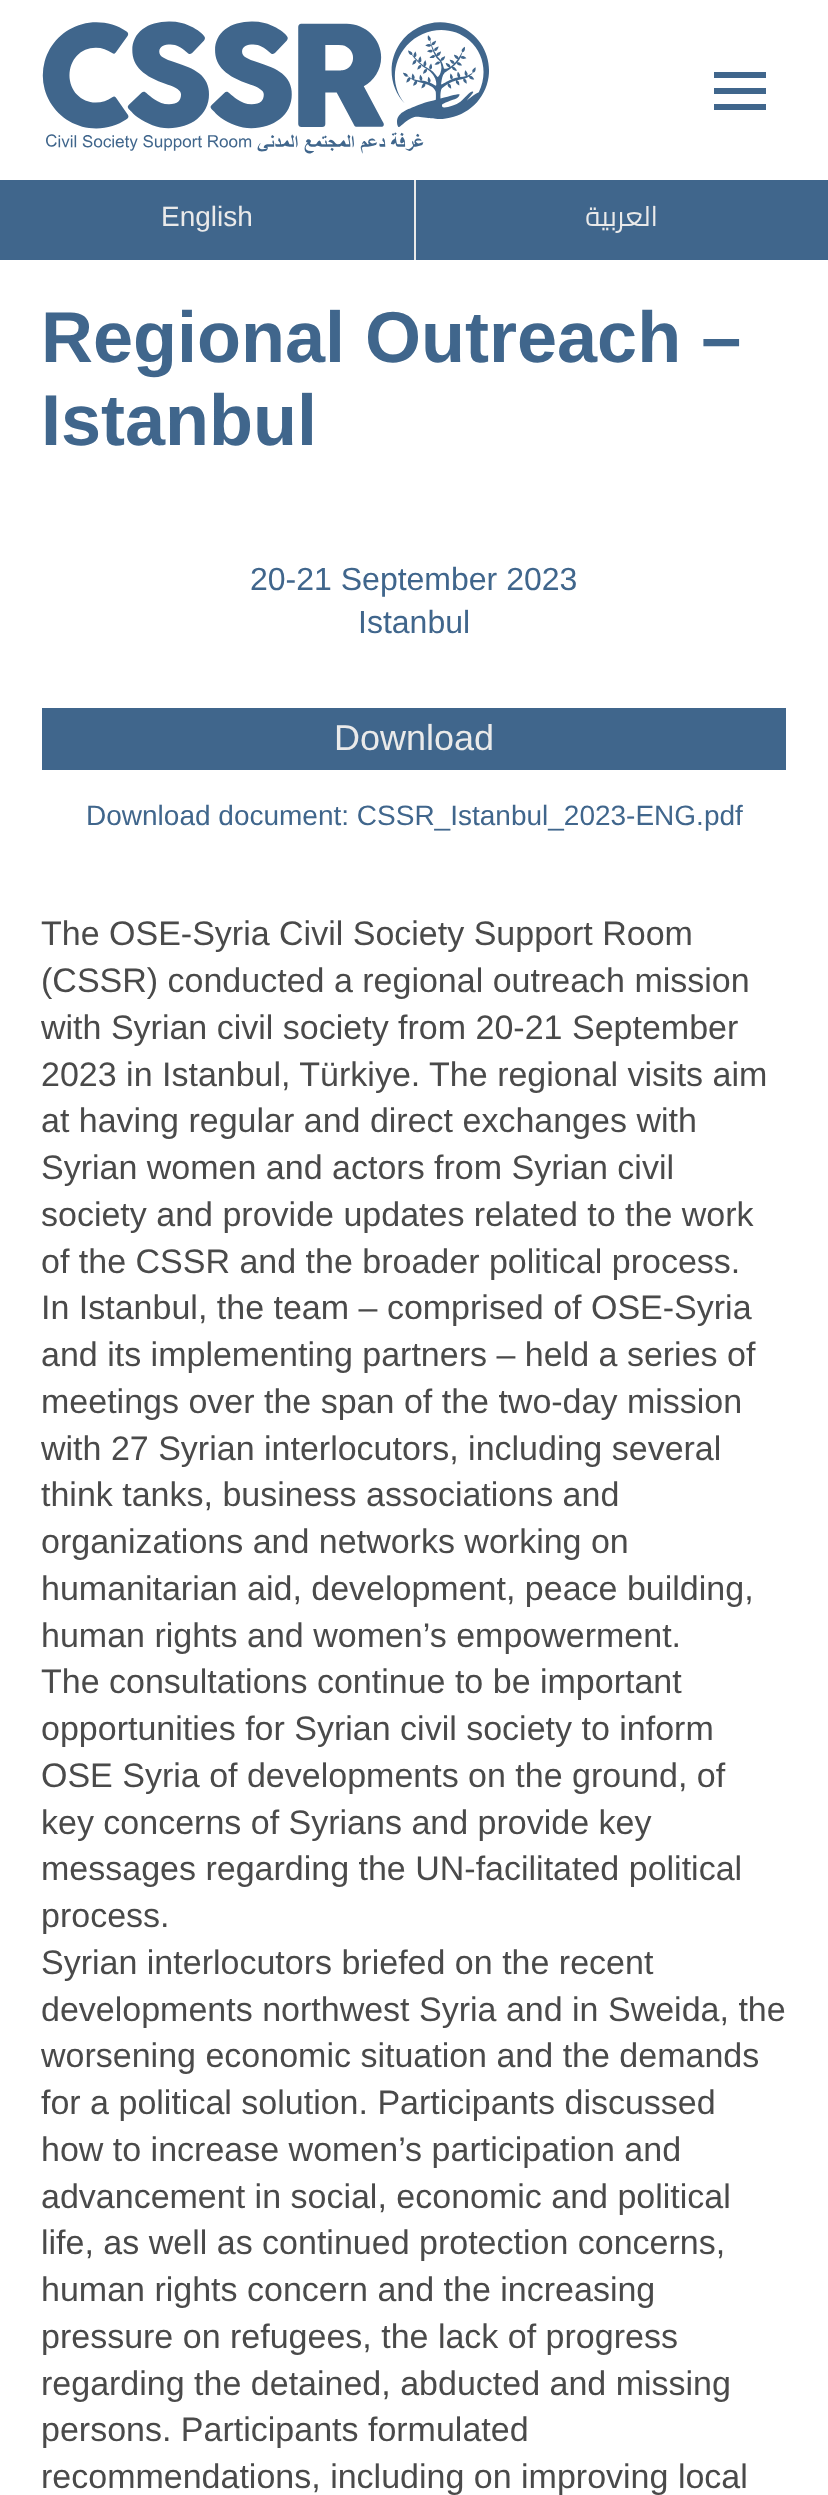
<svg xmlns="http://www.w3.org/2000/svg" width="828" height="2495">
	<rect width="100%" height="100%" fill="#FFFFFF" />
	<image x="42" y="21" width="447" height="133" href="assets/img1.png" />
	<rect x="714" y="88" width="52" height="6" fill="#40668C" />
	<rect x="714" y="72" width="52" height="6" fill="#40668C" />
	<rect x="714" y="104" width="52" height="6" fill="#40668C" />
	<rect x="0" y="180" width="414" height="80" fill="#40668C" />
	<text x="161" y="226" font-family="Liberation Sans" font-size="28" fill="#EAEAEA">English</text>
	<rect x="414" y="180" width="2" height="80" fill="#EAEAEA" />
	<rect x="416" y="180" width="412" height="80" fill="#40668C" />
	<text x="658" y="226" font-family="Cairo" font-size="28" direction="rtl" fill="#EAEAEA">العربية</text>
	<g font-family="Liberation Sans" font-size="72" font-weight="700" fill="#40668C">
		<text x="41" y="362">Regional Outreach –</text>
		<text x="41" y="445">Istanbul</text>
	</g>
	<g font-family="Liberation Sans" font-size="32" fill="#40668C">
		<text x="250" y="590">20-21 September 2023</text>
		<text x="358" y="633">Istanbul</text>
	</g>
	<rect x="42" y="708" width="744" height="62" fill="#40668C" />
	<text x="334" y="750" font-family="Liberation Sans" font-size="36" fill="#EAEAEA">Download</text>
	<text x="86" y="825" font-family="Liberation Sans" font-size="28" fill="#40668C">Download document: CSSR_Istanbul_2023-ENG.pdf</text>
	<g font-family="Liberation Sans" font-size="34" fill="#4A4A4A">
		<text x="41" y="945">The OSE-Syria Civil Society Support Room</text>
		<text x="41" y="992">(CSSR) conducted a regional outreach mission</text>
		<text x="41" y="1039">with Syrian civil society from 20-21 September</text>
		<text x="41" y="1086">2023 in Istanbul, Türkiye. The regional visits aim</text>
		<text x="41" y="1132">at having regular and direct exchanges with</text>
		<text x="41" y="1179">Syrian women and actors from Syrian civil</text>
		<text x="41" y="1226">society and provide updates related to the work</text>
		<text x="41" y="1273">of the CSSR and the broader political process.</text>
		<text x="41" y="1319">In Istanbul, the team – comprised of OSE-Syria</text>
		<text x="41" y="1366">and its implementing partners – held a series of</text>
		<text x="41" y="1413">meetings over the span of the two-day mission</text>
		<text x="41" y="1460">with 27 Syrian interlocutors, including several</text>
		<text x="41" y="1506">think tanks, business associations and</text>
		<text x="41" y="1553">organizations and networks working on</text>
		<text x="41" y="1600">humanitarian aid, development, peace building,</text>
		<text x="41" y="1647">human rights and women’s empowerment.</text>
		<text x="41" y="1693">The consultations continue to be important</text>
		<text x="41" y="1740">opportunities for Syrian civil society to inform</text>
		<text x="41" y="1787">OSE Syria of developments on the ground, of</text>
		<text x="41" y="1834">key concerns of Syrians and provide key</text>
		<text x="41" y="1880">messages regarding the UN-facilitated political</text>
		<text x="41" y="1927">process.</text>
		<text x="41" y="1974">Syrian interlocutors briefed on the recent</text>
		<text x="41" y="2021">developments northwest Syria and in Sweida, the</text>
		<text x="41" y="2067">worsening economic situation and the demands</text>
		<text x="41" y="2114">for a political solution. Participants discussed</text>
		<text x="41" y="2161">how to increase women’s participation and</text>
		<text x="41" y="2208">advancement in social, economic and political</text>
		<text x="41" y="2254">life, as well as continued protection concerns,</text>
		<text x="41" y="2301">human rights concern and the increasing</text>
		<text x="41" y="2348">pressure on refugees, the lack of progress</text>
		<text x="41" y="2395">regarding the detained, abducted and missing</text>
		<text x="41" y="2441">persons. Participants formulated</text>
		<text x="41" y="2488">recommendations, including on improving local</text>
	</g>
</svg>
